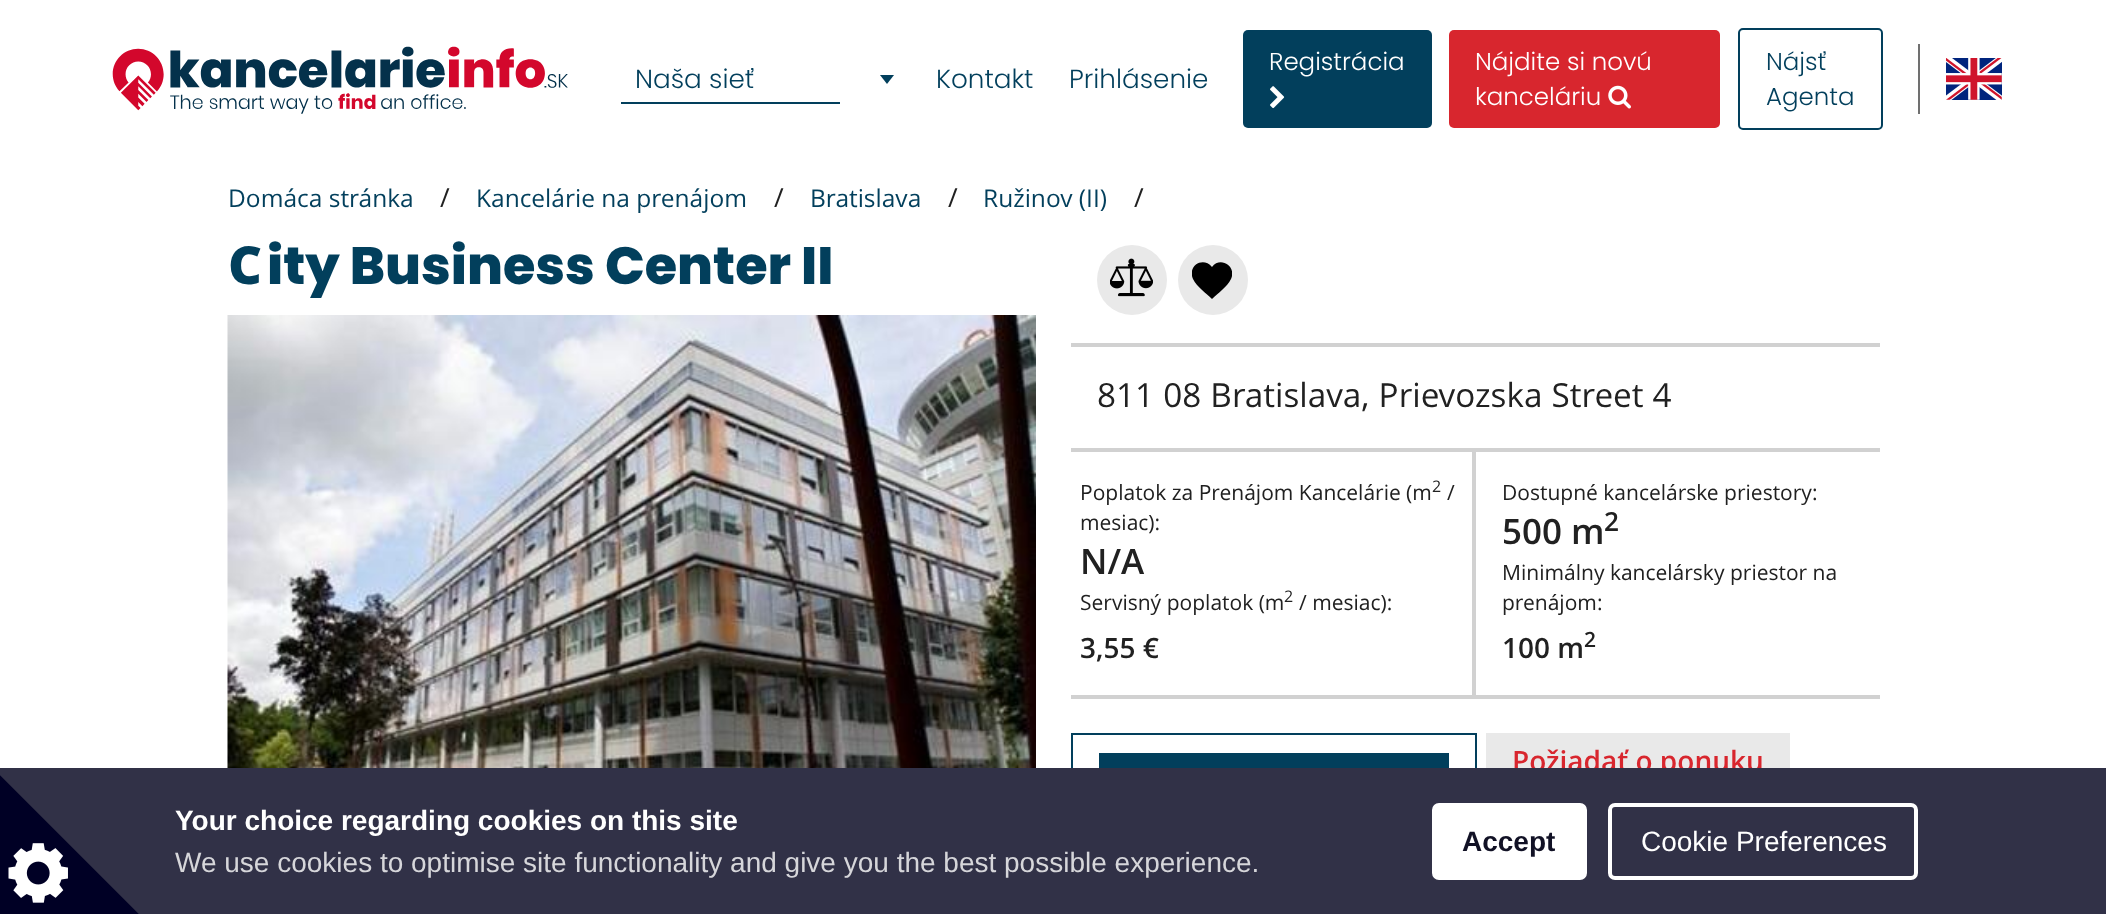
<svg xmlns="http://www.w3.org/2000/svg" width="2106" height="914">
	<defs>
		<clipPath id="clip1"><rect x="1192" y="261" width="40" height="40" /></clipPath>
	</defs>
	<rect width="100%" height="100%" fill="#FFFFFF" />
	<image x="112" y="46" width="456" height="68" href="assets/img1.png" />
	<text x="635" y="88" font-family="Poppins" font-size="26.25" font-weight="300" fill="#023F5C">Naša sieť</text>
	<rect x="621" y="102" width="219" height="2" fill="#023F5C" />
	<path d="M880 75H894L887 84Z" fill="#023F5C" />
	<g font-family="Poppins" font-size="26.25" font-weight="300" fill="#023F5C">
		<text x="936" y="88">Kontakt</text>
		<text x="1069" y="88">Prihlásenie</text>
	</g>
	<rect x="1243" y="30" width="189" height="98" rx="5" fill="#023F5C" />
	<text x="1269" y="70" font-family="Poppins" font-size="24.5" font-weight="300" fill="#FFFFFF">Registrácia</text>
	<image x="1270" y="86" width="15" height="23" href="assets/img2.png" />
	<rect x="1449" y="30" width="271" height="98" rx="5" fill="#D8262E" />
	<g font-family="Poppins" font-size="24.5" font-weight="300" fill="#FFFFFF">
		<text x="1475" y="70">Nájdite si novú</text>
		<text x="1475" y="105">kanceláriu</text>
	</g>
	<image x="1608" y="85" width="23" height="24" href="assets/img3.png" />
	<rect x="1739" y="29" width="143" height="100" rx="4" fill="none" stroke="#023F5C" stroke-width="2" />
	<g font-family="Poppins" font-size="24.5" font-weight="300" fill="#023F5C">
		<text x="1766" y="70">Nájsť</text>
		<text x="1766" y="105">Agenta</text>
	</g>
	<rect x="1918" y="44" width="2" height="70" fill="#707070" />
	<image x="1946" y="58" width="56" height="42" href="assets/img4.png" />
	<text x="228" y="207" font-family="Open Sans" font-size="24.5" fill="#023F5C">Domáca stránka</text>
	<text x="440" y="207" font-family="Open Sans" font-size="26.25" fill="#212121">/</text>
	<text x="476" y="207" font-family="Open Sans" font-size="24.5" fill="#023F5C">Kancelárie na prenájom</text>
	<text x="774" y="207" font-family="Open Sans" font-size="26.25" fill="#212121">/</text>
	<text x="810" y="207" font-family="Open Sans" font-size="24.5" fill="#023F5C">Bratislava</text>
	<text x="948" y="207" font-family="Open Sans" font-size="26.25" fill="#212121">/</text>
	<text x="983" y="207" font-family="Open Sans" font-size="24.5" fill="#023F5C">Ružinov (II)</text>
	<text x="1134" y="207" font-family="Open Sans" font-size="26.25" fill="#212121">/</text>
	<text x="228" y="284" font-family="Noto Sans" font-size="52.5" font-weight="900" fill="#023F5C">C</text>
	<text x="267" y="284" font-family="Poppins" font-size="52.5" font-weight="800" fill="#023F5C">ity Business Center II</text>
	<image x="227" y="315" width="809" height="453" href="assets/img5.png" />
	<rect x="1071" y="343" width="809" height="4" fill="#D1D1D1" />
	<circle cx="1132" cy="280" r="35" fill="#E9E9E9" />
	<image x="1110" y="258" width="43" height="39" href="assets/img6.png" />
	<circle cx="1213" cy="280" r="35" fill="#E9E9E9" />
	<g clip-path="url(#clip1)">
		<path d="M1212 299C1206 293 1197 287 1193 279C1187 266 1203 256 1212 267C1220 256 1237 266 1231 279C1227 287 1218 293 1212 299Z" fill="#000000" />
	</g>
	<rect x="1071" y="448" width="809" height="4" fill="#D1D1D1" />
	<text x="1097" y="407" word-spacing="0.5" font-family="Open Sans" font-size="33.25" fill="#212121">811 08 Bratislava, Prievozska Street 4</text>
	<rect x="1071" y="695" width="809" height="4" fill="#D1D1D1" />
	<rect x="1472" y="452" width="4" height="243" fill="#D1D1D1" />
	<g font-family="Open Sans" font-size="21" fill="#212121">
		<text x="1080" y="500">Poplatok za Prenájom Kancelárie</text>
		<text x="1406" y="500">(m</text>
	</g>
	<text x="1432" y="492" font-family="Open Sans" font-size="16" fill="#212121">2</text>
	<g font-family="Open Sans" font-size="21" fill="#212121">
		<text x="1447" y="500">/</text>
		<text x="1080" y="530">mesiac):</text>
	</g>
	<text x="1080" y="574" font-family="Open Sans" font-size="35" font-weight="600" fill="#212121">N/A</text>
	<text x="1080" y="610" font-family="Open Sans" font-size="21" fill="#212121">Servisný poplatok (m</text>
	<text x="1284" y="602" font-family="Open Sans" font-size="16" fill="#212121">2</text>
	<text x="1299" y="610" font-family="Open Sans" font-size="21" fill="#212121">/ mesiac):</text>
	<text x="1080" y="658" font-family="Open Sans" font-size="28" font-weight="600" fill="#212121">3,55 €</text>
	<text x="1502" y="500" font-family="Open Sans" font-size="21" fill="#212121">Dostupné kancelárske priestory:</text>
	<text x="1502" y="544" font-family="Open Sans" font-size="35" font-weight="600" fill="#212121">500 m</text>
	<text x="1604" y="531" font-family="Open Sans" font-size="26.25" font-weight="600" fill="#212121">2</text>
	<g font-family="Open Sans" font-size="21" fill="#212121">
		<text x="1502" y="580">Minimálny kancelársky priestor na</text>
		<text x="1502" y="610">prenájom:</text>
	</g>
	<text x="1502" y="658" font-family="Open Sans" font-size="28" font-weight="600" fill="#212121">100 m</text>
	<text x="1584" y="647" font-family="Open Sans" font-size="21" font-weight="600" fill="#212121">2</text>
	<rect x="1071" y="733" width="406" height="2" fill="#023F5C" />
	<rect x="1475" y="733" width="2" height="35" fill="#023F5C" />
	<rect x="1071" y="733" width="2" height="35" fill="#023F5C" />
	<rect x="1099" y="753" width="350" height="15" fill="#023F5C" />
	<rect x="1486" y="733" width="304" height="35" fill="#E9E9E9" />
	<text x="1512" y="771" font-family="Open Sans" font-size="28" font-weight="600" fill="#D8262E">Požiadať o ponuku</text>
	<rect x="0" y="768" width="2106" height="146" fill="#313147" />
	<image x="0" y="775" width="139" height="139" href="assets/img7.png" />
	<text x="175" y="830" font-family="Liberation Sans" font-size="28" font-weight="700" fill="#FFFFFF">Your choice regarding cookies on this site</text>
	<text x="175" y="872" font-family="Liberation Sans" font-size="28" fill="#D6D6DA">We use cookies to optimise site functionality and give you the best possible experience.</text>
	<rect x="1434" y="805" width="151" height="73" rx="5" fill="#FFFFFF" stroke="#FFFFFF" stroke-width="4" />
	<text x="1462" y="851" font-family="Liberation Sans" font-size="28" font-weight="700" fill="#111125">Accept</text>
	<rect x="1610" y="805" width="306" height="73" rx="5" fill="none" stroke="#FFFFFF" stroke-width="4" />
	<text x="1641" y="851" font-family="Liberation Sans" font-size="28" fill="#FFFFFF">Cookie Preferences</text>
</svg>
